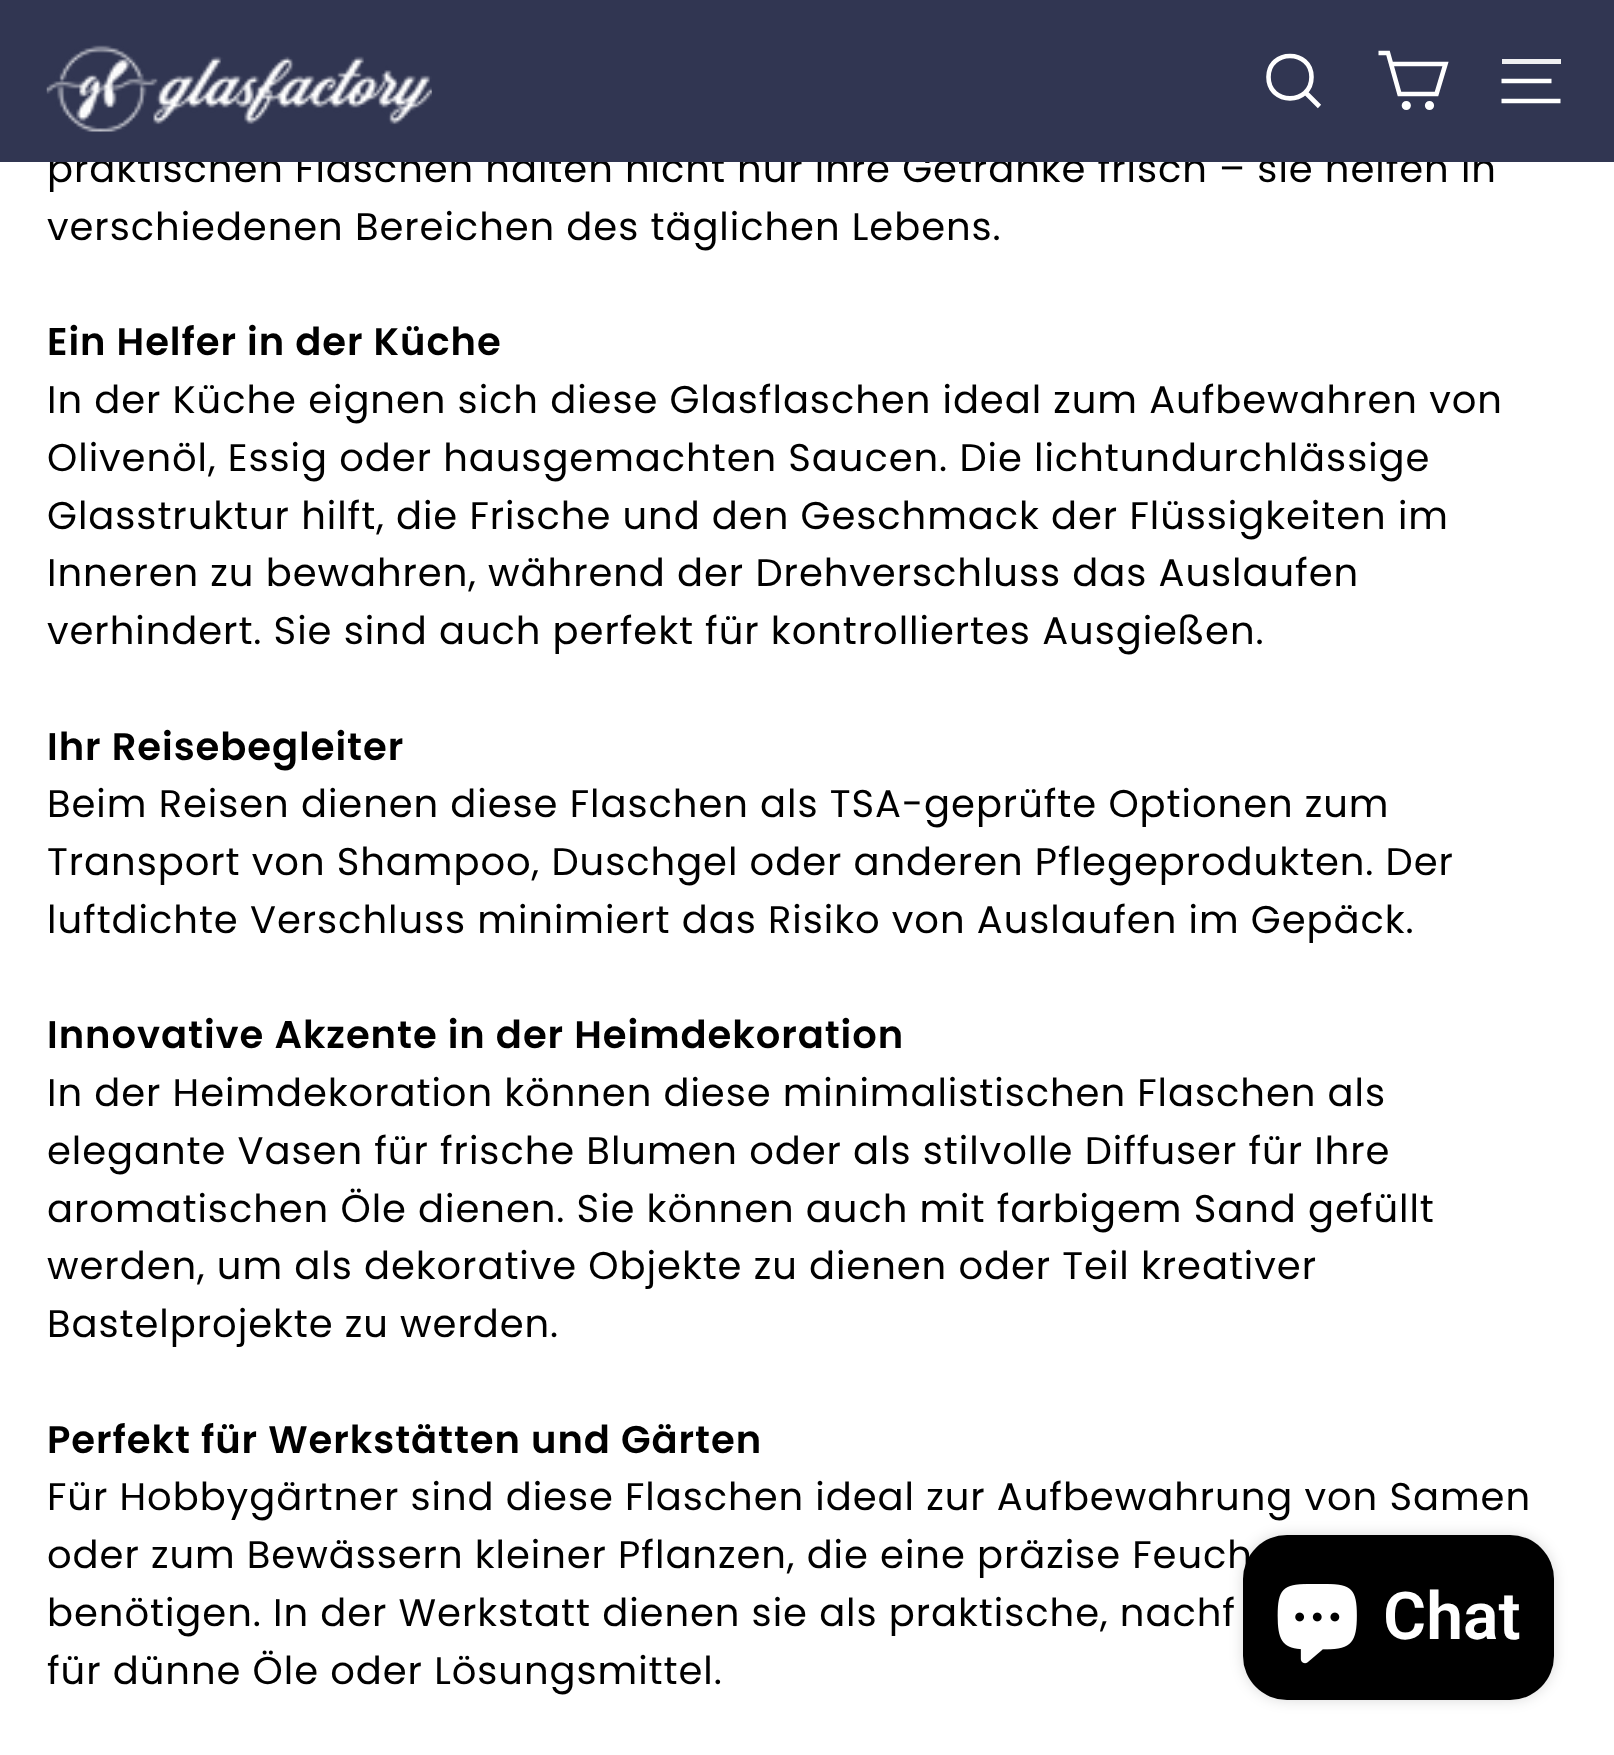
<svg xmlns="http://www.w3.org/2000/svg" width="1614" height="1755">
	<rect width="100%" height="100%" fill="#FFFFFF" />
	<text x="47" y="182" font-family="Poppins" font-size="38.5" letter-spacing="0.95" fill="#000000">praktischen Flaschen halten nicht nur Ihre Getränke frisch – sie helfen in</text>
	<rect x="0" y="0" width="1614" height="162" fill="#313652" />
	<image x="46" y="45" width="386" height="87" href="assets/img1.png" />
	<path d="M1311.5 77C1311.5 105.5 1268.5 105.5 1268.5 77C1268.5 49 1311.5 49 1311.5 77ZM1319.5 106.5L1305.5 92.5" fill="none" stroke="#FFFFFF" stroke-width="4.6" />
	<path d="M1391 64H1445.5L1436.5 94H1399.5L1388 53H1378.5" fill="none" stroke="#FFFFFF" stroke-width="4.6" />
	<circle cx="1406.3" cy="105.5" r="2.3" fill="none" stroke="#FFFFFF" stroke-width="4.6" />
	<circle cx="1429.5" cy="105.5" r="2.3" fill="none" stroke="#FFFFFF" stroke-width="4.6" />
	<rect x="1502" y="59" width="59" height="5" fill="#EFEFF1" />
	<path d="M1501.5 81H1551.5M1501.5 101H1560.5" fill="none" stroke="#FFFFFF" stroke-width="4.6" />
	<text x="47" y="240" font-family="Poppins" font-size="38.5" letter-spacing="0.95" fill="#000000">verschiedenen Bereichen des täglichen Lebens.</text>
	<text x="47" y="355" font-family="Poppins" font-size="38.5" font-weight="600" letter-spacing="0.95" fill="#000000">Ein Helfer in der Küche</text>
	<g font-family="Poppins" font-size="38.5" letter-spacing="0.95" fill="#000000">
		<text x="47" y="413">In der Küche eignen sich diese Glasflaschen ideal zum Aufbewahren von</text>
		<text x="47" y="471">Olivenöl, Essig oder hausgemachten Saucen. Die lichtundurchlässige</text>
		<text x="47" y="529">Glasstruktur hilft, die Frische und den Geschmack der Flüssigkeiten im</text>
		<text x="47" y="586">Inneren zu bewahren, während der Drehverschluss das Auslaufen</text>
		<text x="47" y="644">verhindert. Sie sind auch perfekt für kontrolliertes Ausgießen.</text>
	</g>
	<text x="47" y="760" font-family="Poppins" font-size="38.5" font-weight="600" letter-spacing="0.95" fill="#000000">Ihr Reisebegleiter</text>
	<g font-family="Poppins" font-size="38.5" letter-spacing="0.95" fill="#000000">
		<text x="47" y="817">Beim Reisen dienen diese Flaschen als TSA-geprüfte Optionen zum</text>
		<text x="47" y="875">Transport von Shampoo, Duschgel oder anderen Pflegeprodukten. Der</text>
		<text x="47" y="933">luftdichte Verschluss minimiert das Risiko von Auslaufen im Gepäck.</text>
	</g>
	<text x="47" y="1048" font-family="Poppins" font-size="38.5" font-weight="600" letter-spacing="0.95" fill="#000000">Innovative Akzente in der Heimdekoration</text>
	<g font-family="Poppins" font-size="38.5" letter-spacing="0.95" fill="#000000">
		<text x="47" y="1106">In der Heimdekoration können diese minimalistischen Flaschen als</text>
		<text x="47" y="1164">elegante Vasen für frische Blumen oder als stilvolle Diffuser für Ihre</text>
		<text x="47" y="1222">aromatischen Öle dienen. Sie können auch mit farbigem Sand gefüllt</text>
		<text x="47" y="1279">werden, um als dekorative Objekte zu dienen oder Teil kreativer</text>
		<text x="47" y="1337">Bastelprojekte zu werden.</text>
	</g>
	<text x="47" y="1453" font-family="Poppins" font-size="38.5" font-weight="600" letter-spacing="0.95" fill="#000000">Perfekt für Werkstätten und Gärten</text>
	<g font-family="Poppins" font-size="38.5" letter-spacing="0.95" fill="#000000">
		<text x="47" y="1510">Für Hobbygärtner sind diese Flaschen ideal zur Aufbewahrung von Samen</text>
		<text x="47" y="1568">oder zum Bewässern kleiner Pflanzen, die eine präzise Feuch</text>
		<text x="47" y="1626">benötigen. In der Werkstatt dienen sie als praktische, nachf</text>
		<text x="47" y="1684">für dünne Öle oder Lösungsmittel.</text>
	</g>
	<rect x="1243" y="1535" width="311" height="165" rx="44" fill="#000000" fill-opacity="0.15" filter="blur(7px)" />
	<rect x="1243" y="1535" width="311" height="165" rx="44" fill="#000000" />
	<image x="1277" y="1584" width="80" height="80" href="assets/img2.png" />
	<text x="1383" y="1639" font-family="Roboto" font-size="66" font-weight="600" fill="#FFFFFF">Chat</text>
</svg>
